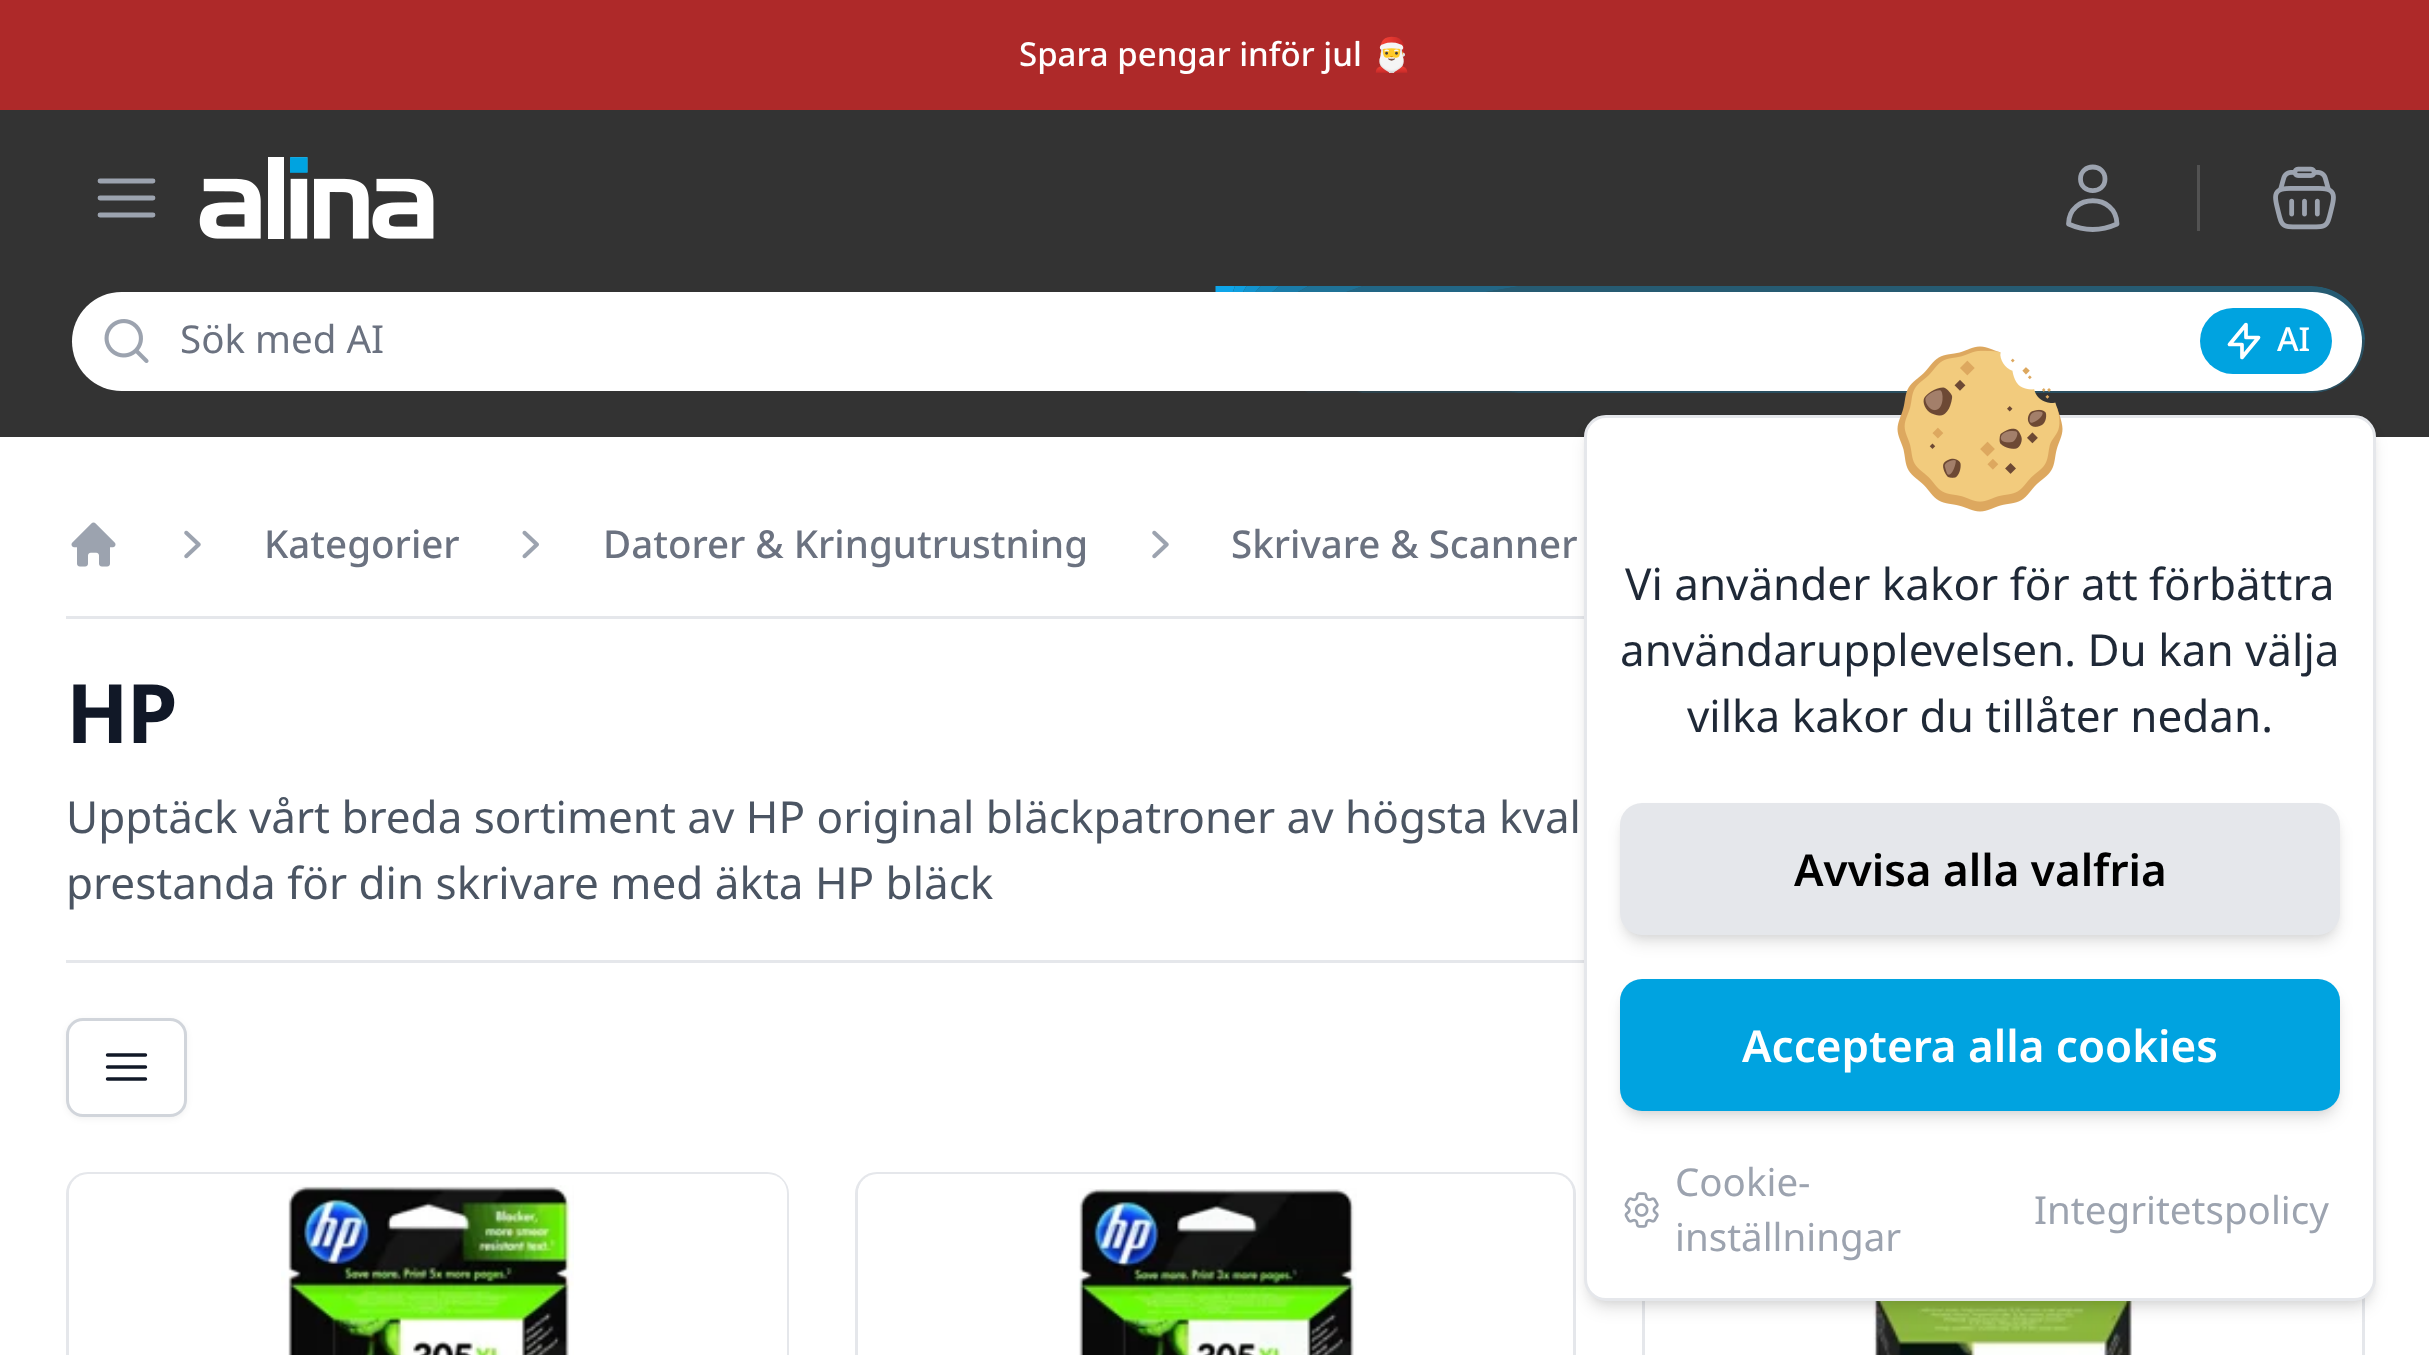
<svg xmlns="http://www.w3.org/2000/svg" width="2429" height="1355">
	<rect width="100%" height="100%" fill="#FFFFFF" />
	<rect x="0" y="110" width="2429" height="327" fill="#333333" />
	<rect x="0" y="0" width="2429" height="110" fill="#AE2929" />
	<text x="1019" y="66" font-family="Noto Sans" font-size="33" font-weight="500" fill="#FFFFFF">Spara pengar inför jul</text>
	<text x="1371" y="66" font-family="Noto Color Emoji" font-size="33" fill="#FFFFFF">🎅</text>
	<path d="M100 181H153M100 198H153M100 215H153" fill="none" stroke="#9CA3AF" stroke-width="4.8" stroke-linecap="round" stroke-linejoin="round" />
	<image x="199" y="157" width="235" height="82" href="assets/img1.png" />
	<path d="M2105 179C2105 194.5 2080.5 194.5 2080.5 179C2080.5 163 2105 163 2105 179ZM2068.5 224C2069 193 2116.5 193 2117 224C2101.5 231 2084 231 2068.5 224Z" fill="none" stroke="#9CA3AF" stroke-width="4.8" stroke-linecap="round" stroke-linejoin="round" />
	<rect x="2428" y="195" width="1" height="28" fill="#303030" />
	<rect x="2197" y="165" width="3" height="66" fill="#525252" />
	<image x="2273" y="166" width="63" height="64" href="assets/img2.png" />
	<image x="1215" y="286" width="1150" height="107" href="assets/img4.png" />
	<rect x="72" y="292" width="2290" height="99" rx="49.5" fill="#FFFFFF" />
	<image x="104" y="319" width="45" height="44" href="assets/img3.png" />
	<text x="180" y="353" font-family="Noto Sans" font-size="38.5" fill="#6B7280">Sök med AI</text>
	<rect x="2200" y="308" width="132" height="66" rx="33" fill="#00A3E0" />
	<path d="M2246 337.5V324.5L2229.5 344.5H2242V357.5L2258.5 337.5Z" fill="none" stroke="#FFFFFF" stroke-width="3.7" stroke-linecap="round" stroke-linejoin="round" />
	<text x="2277" y="351" font-family="Noto Sans" font-size="33" font-weight="500" fill="#FFFFFF">AI</text>
	<rect x="66" y="616" width="1518" height="3" fill="#E5E7EB" />
	<image x="71" y="522" width="45" height="45" href="assets/img5.png" />
	<image x="184" y="530" width="17" height="29" href="assets/img6.png" />
	<text x="264" y="558" font-family="Noto Sans" font-size="38.5" font-weight="500" fill="#6B7280">Kategorier</text>
	<image x="522" y="530" width="17" height="29" href="assets/img7.png" />
	<text x="603" y="558" font-family="Noto Sans" font-size="38.5" font-weight="500" fill="#6B7280">Datorer &amp; Kringutrustning</text>
	<image x="1152" y="530" width="17" height="29" href="assets/img6.png" />
	<text x="1231" y="558" font-family="Noto Sans" font-size="38.5" font-weight="500" fill="#6B7280">Skrivare &amp; Scanner</text>
	<rect x="66" y="960" width="1518" height="3" fill="#E5E7EB" />
	<text x="66" y="743" font-family="Noto Sans" font-size="82" font-weight="700" letter-spacing="-2" fill="#111827">HP</text>
	<g font-family="Noto Sans" font-size="44" fill="#4B5563">
		<text x="66" y="833">Upptäck vårt breda sortiment av HP original bläckpatroner av högsta kval</text>
		<text x="66" y="899">prestanda för din skrivare med äkta HP bläck</text>
	</g>
	<rect x="66" y="1020" width="121" height="99" rx="17" fill="#000000" fill-opacity="0.05" filter="blur(3px)" />
	<rect x="67.5" y="1019.5" width="118" height="96" rx="15.5" fill="#FFFFFF" stroke="#D1D5DB" stroke-width="3" />
	<path d="M107.5 1055H145.5M107.5 1067H145.5M107.5 1079H145.5" fill="none" stroke="#111827" stroke-width="3.4" stroke-linecap="round" stroke-linejoin="round" />
	<rect x="67.5" y="1173.5" width="720" height="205" rx="20.5" fill="none" stroke="#E5E7EB" stroke-width="3" />
	<path d="M88 1174H768C778.5 1174 787 1182.5 787 1193V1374H69V1193C69 1182.5 77.5 1174 88 1174Z" fill="#FFFFFF" />
	<image x="281" y="1185" width="293" height="170" href="assets/img8.png" />
	<rect x="856.5" y="1173.5" width="718" height="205" rx="20.5" fill="none" stroke="#E5E7EB" stroke-width="3" />
	<path d="M877 1174H1554C1564.5 1174 1573 1182.5 1573 1193V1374H858V1193C858 1182.5 866.5 1174 877 1174Z" fill="#FFFFFF" />
	<image x="1078" y="1188" width="279" height="167" href="assets/img9.png" />
	<rect x="1643.5" y="1173.5" width="720" height="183" fill="none" stroke="#E5E7EB" stroke-width="3" />
	<image x="1873" y="1301" width="262" height="54" href="assets/img10.png" />
	<rect x="1590" y="426" width="781" height="875" rx="17" fill="#000000" fill-opacity="0.1" filter="blur(5.5px)" />
	<rect x="1587" y="429" width="786" height="880" rx="19" fill="#000000" fill-opacity="0.1" filter="blur(8px)" />
	<rect x="1585.5" y="416.5" width="789" height="883" rx="20.5" fill="#FFFFFF" stroke="#E5E7EB" stroke-width="3" />
	<image x="1897" y="346" width="166" height="166" href="assets/img11.png" />
	<g font-family="Noto Sans" font-size="44" fill="#1F2937">
		<text x="1625" y="600">Vi använder kakor för att förbättra</text>
		<text x="1620" y="666">användarupplevelsen. Du kan välja</text>
		<text x="1687" y="732">vilka kakor du tillåter nedan.</text>
	</g>
	<rect x="1625" y="814" width="710" height="121" rx="17" fill="#000000" fill-opacity="0.1" filter="blur(5.5px)" />
	<rect x="1623" y="817" width="715" height="126" rx="19" fill="#000000" fill-opacity="0.1" filter="blur(8px)" />
	<rect x="1620" y="803" width="720" height="132" rx="22" fill="#E5E7EB" />
	<text x="1794" y="886" font-family="Noto Sans" font-size="44" font-weight="600" fill="#000000">Avvisa alla valfria</text>
	<rect x="1625" y="990" width="710" height="121" rx="17" fill="#000000" fill-opacity="0.1" filter="blur(5.5px)" />
	<rect x="1623" y="993" width="715" height="126" rx="19" fill="#000000" fill-opacity="0.1" filter="blur(8px)" />
	<rect x="1620" y="979" width="720" height="132" rx="22" fill="#00A3E0" />
	<text x="1742" y="1062" font-family="Noto Sans" font-size="44" font-weight="600" fill="#FFFFFF">Acceptera alla cookies</text>
	<text x="1675" y="1196" font-family="Noto Sans" font-size="38.5" fill="#9CA3AF">Cookie-</text>
	<image x="1624" y="1192" width="35" height="36" href="assets/img12.png" />
	<g font-family="Noto Sans" font-size="38.5" fill="#9CA3AF">
		<text x="1675" y="1251">inställningar</text>
		<text x="2034" y="1224">Integritetspolicy</text>
	</g>
</svg>
